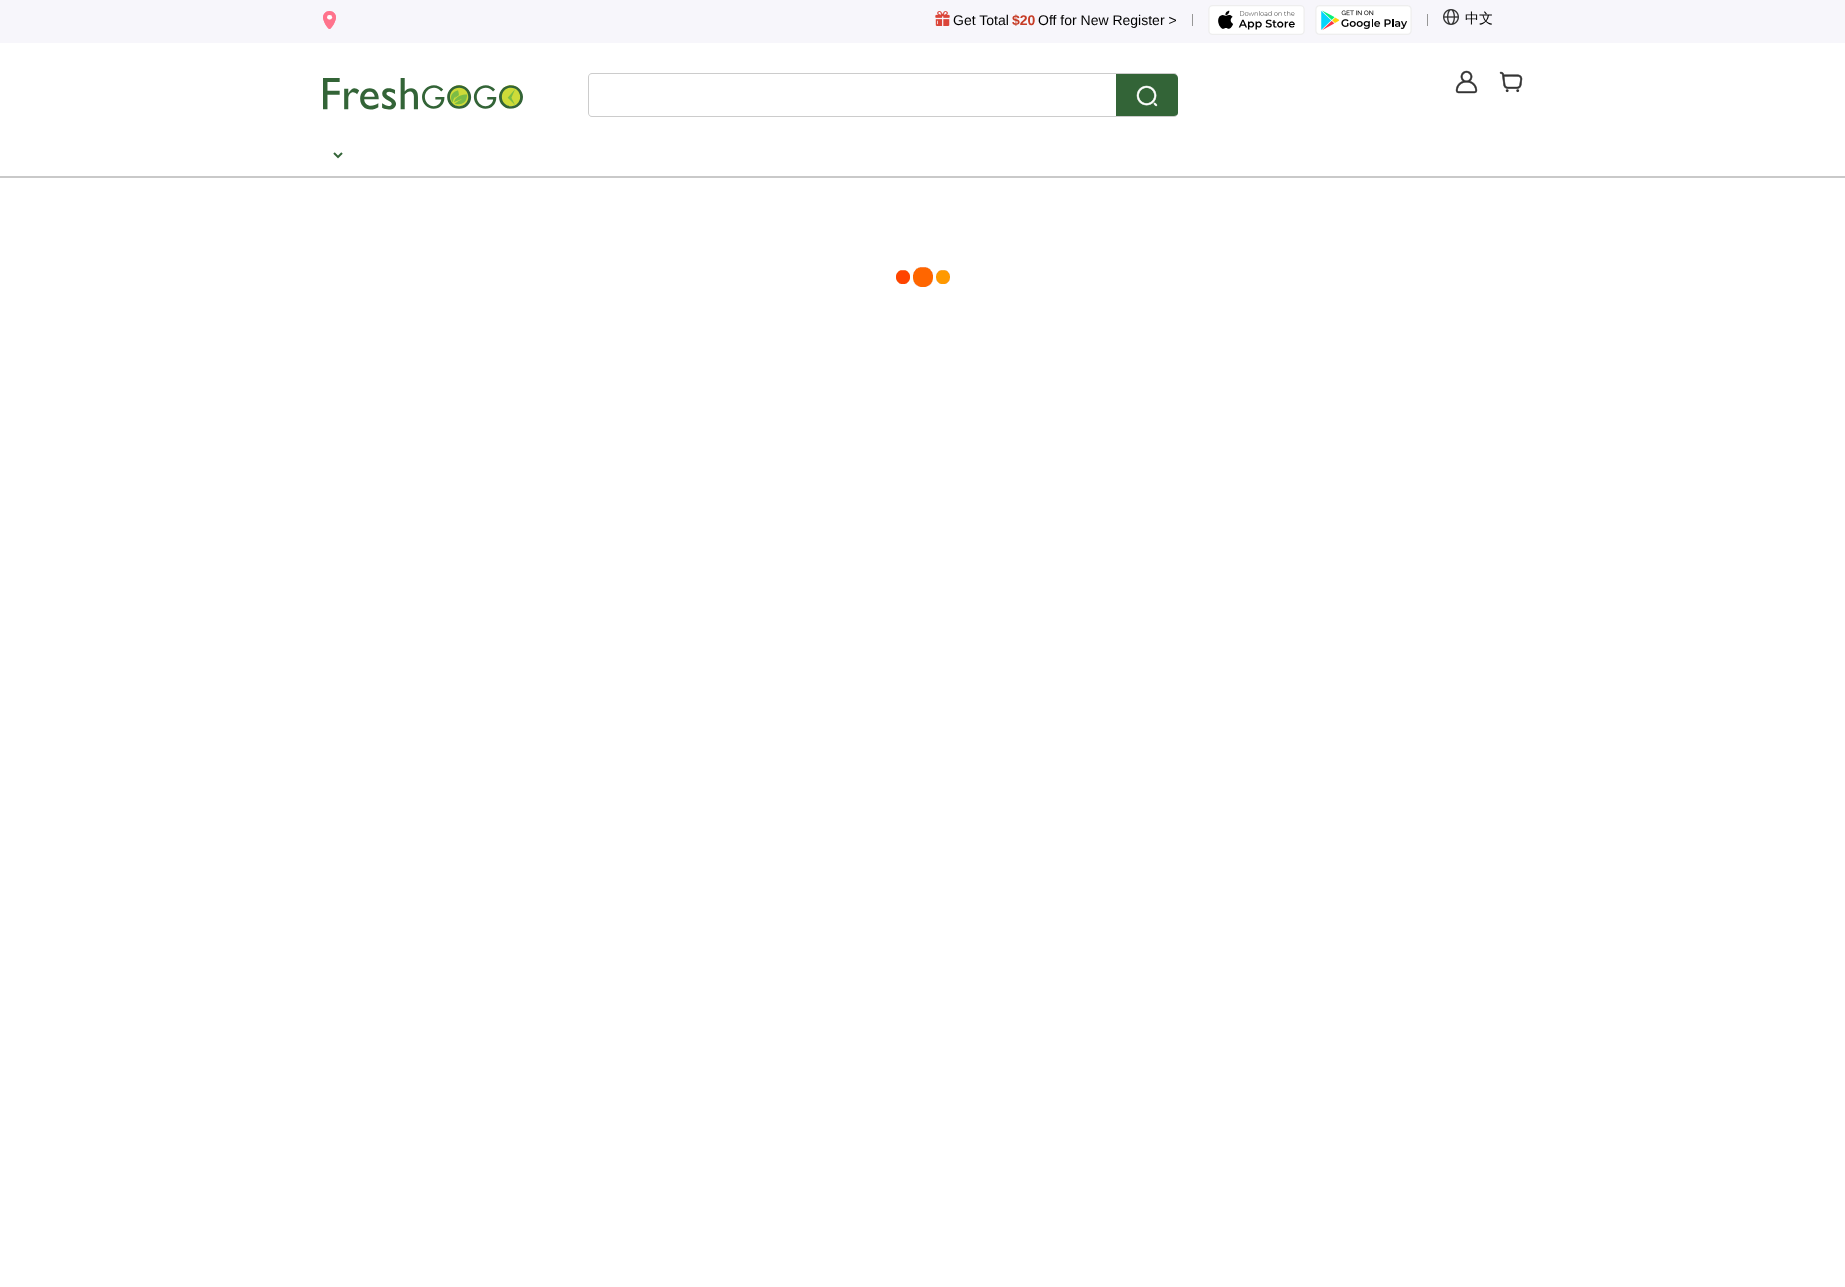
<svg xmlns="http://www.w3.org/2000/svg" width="1845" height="1287">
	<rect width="100%" height="100%" fill="#FFFFFF" />
	<rect x="0" y="0" width="1845" height="43" fill="#F7F6FB" />
	<image x="323" y="11" width="13" height="18" href="assets/img1.png" />
	<image x="935" y="11" width="15" height="15" href="assets/img2.png" />
	<text x="953" y="25" font-family="Liberation Sans" font-size="14" fill="#000000">Get Total</text>
	<text x="1012" y="25" font-family="Liberation Sans" font-size="14" font-weight="700" fill="#C63C26">$20</text>
	<text x="1038" y="25" font-family="Liberation Sans" font-size="14" fill="#000000">Off for New Register &gt;</text>
	<rect x="1192" y="14" width="1" height="12" fill="#979797" />
	<image x="1208" y="5" width="97" height="30" href="assets/img3.png" />
	<image x="1315" y="5" width="97" height="30" href="assets/img4.png" />
	<rect x="1427" y="14" width="1" height="12" fill="#979797" />
	<image x="1443" y="9" width="16" height="16" href="assets/img5.png" />
	<text x="1465" y="23" font-family="WenQuanYi Zen Hei" font-size="14" font-weight="500" fill="#000000">中文</text>
	<rect x="0" y="176" width="1845" height="2" fill="#C9C9C9" />
	<image x="323" y="78" width="200" height="32" href="assets/img6.png" />
	<path d="M592 73H1174C1176 73 1178 75 1178 77V113C1178 115 1176 117 1174 117H592C590 117 588 115 588 113V77C588 75 590 73 592 73ZM592 74H1174C1176 74 1178 75 1178 77V113C1178 115 1176 116 1174 116H592C590 116 589 115 589 113V77C589 75 590 74 592 74Z" fill="#CCCCCC" fill-rule="evenodd" />
	<path d="M1116 74V116H1174C1176 116 1178 115 1178 113V78C1178 76 1176 74 1174 74Z" fill="#336437" />
	<image x="1136" y="85" width="22" height="22" href="assets/img7.png" />
	<image x="1455" y="70" width="23" height="24" href="assets/img8.png" />
	<image x="1499" y="71" width="24" height="22" href="assets/img9.png" />
	<image x="333" y="152" width="10" height="7" href="assets/img10.png" />
	<image x="896" y="267" width="54" height="20" href="assets/img11.png" />
</svg>
